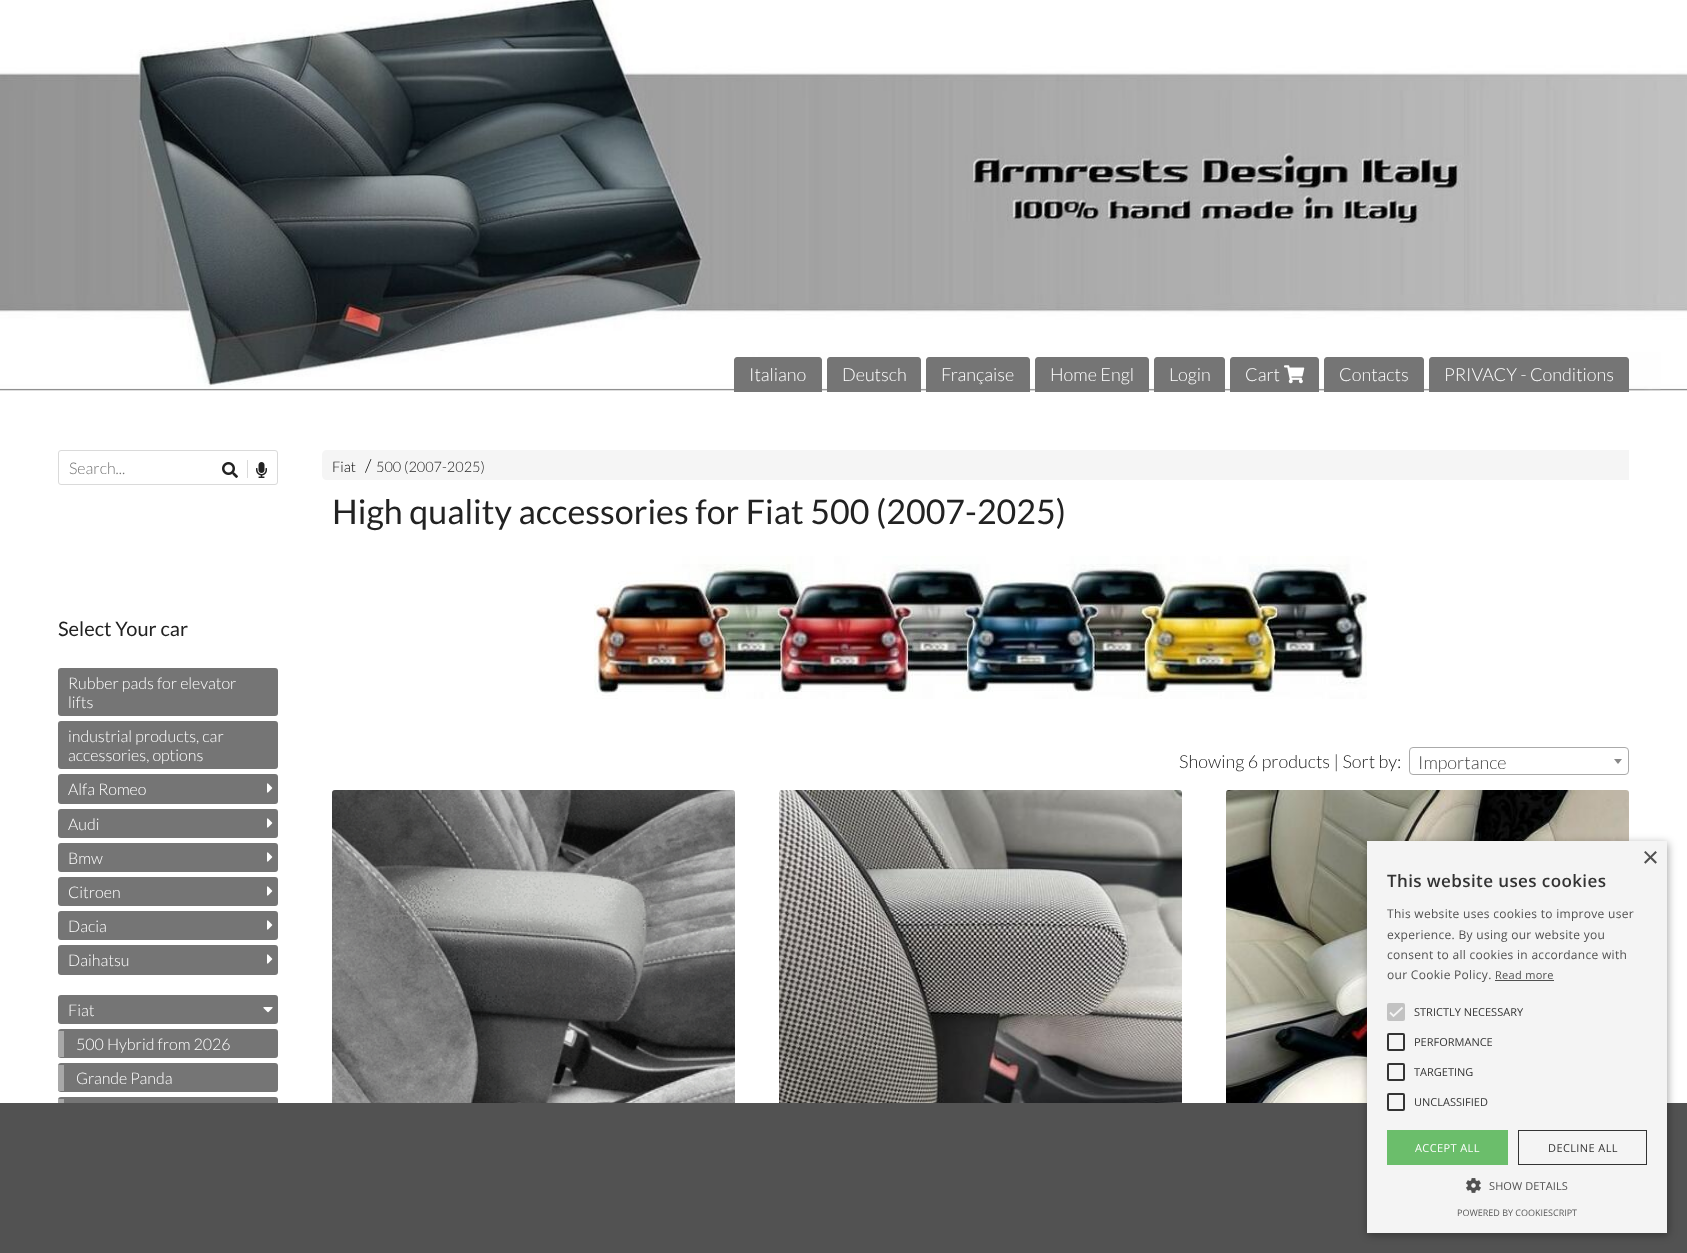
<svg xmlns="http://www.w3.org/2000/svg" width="1687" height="1253">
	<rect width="100%" height="100%" fill="#FFFFFF" />
	<image x="0" y="0" width="1687" height="391" href="assets/img1.png" />
	<path d="M737 357H819C820.5 357 822 358.5 822 360V392H734V360C734 358.5 735.5 357 737 357Z" fill="#757575" />
	<text x="749" y="381" font-family="Lato" font-size="18" font-weight="300" fill="#FFFFFF">Italiano</text>
	<path d="M830 357H918C919.5 357 921 358.5 921 360V392H827V360C827 358.5 828.5 357 830 357Z" fill="#757575" />
	<text x="842" y="381" font-family="Lato" font-size="18" font-weight="300" fill="#FFFFFF">Deutsch</text>
	<path d="M929 357H1027C1028.5 357 1030 358.5 1030 360V392H926V360C926 358.5 927.5 357 929 357Z" fill="#757575" />
	<text x="941" y="381" font-family="Lato" font-size="18" font-weight="300" fill="#FFFFFF">Française</text>
	<path d="M1038 357H1146C1147.5 357 1149 358.5 1149 360V392H1035V360C1035 358.5 1036.5 357 1038 357Z" fill="#757575" />
	<text x="1050" y="381" font-family="Lato" font-size="18" font-weight="300" fill="#FFFFFF">Home Engl</text>
	<path d="M1157 357H1222C1223.5 357 1225 358.5 1225 360V392H1154V360C1154 358.5 1155.5 357 1157 357Z" fill="#757575" />
	<text x="1169" y="381" font-family="Lato" font-size="18" font-weight="300" fill="#FFFFFF">Login</text>
	<path d="M1233 357H1316C1317.5 357 1319 358.5 1319 360V392H1230V360C1230 358.5 1231.5 357 1233 357Z" fill="#757575" />
	<text x="1245" y="381" font-family="Lato" font-size="18" font-weight="300" fill="#FFFFFF">Cart</text>
	<image x="1284" y="365" width="21" height="19" href="assets/img2.png" />
	<path d="M1327 357H1421C1422.5 357 1424 358.5 1424 360V392H1324V360C1324 358.5 1325.5 357 1327 357Z" fill="#757575" />
	<text x="1339" y="381" font-family="Lato" font-size="18" font-weight="300" fill="#FFFFFF">Contacts</text>
	<path d="M1432 357H1626C1627.5 357 1629 358.5 1629 360V392H1429V360C1429 358.5 1430.5 357 1432 357Z" fill="#757575" />
	<text x="1444" y="381" font-family="Lato" font-size="18" font-weight="300" fill="#FFFFFF">PRIVACY - Conditions</text>
	<rect x="58.5" y="450.5" width="219" height="34" rx="2.5" fill="none" stroke="#DADADA" />
	<text x="69" y="474" font-family="Lato" font-size="16" font-weight="300" fill="#757575">Search...</text>
	<image x="222" y="462" width="16" height="16" href="assets/img3.png" />
	<rect x="247" y="460" width="1" height="18" fill="#DADADA" />
	<image x="256" y="462" width="11" height="16" href="assets/img4.png" />
	<text x="58" y="636" font-family="Lato" font-size="20" fill="#222222">Select Your car</text>
	<rect x="58" y="668" width="220" height="48" rx="3" fill="#757575" />
	<g font-family="Lato" font-size="16" font-weight="300" fill="#FFFFFF">
		<text x="68" y="689">Rubber pads for elevator</text>
		<text x="68" y="708">lifts</text>
	</g>
	<rect x="58" y="721" width="220" height="48" rx="3" fill="#757575" />
	<g font-family="Lato" font-size="16" font-weight="300" fill="#FFFFFF">
		<text x="68" y="742">industrial products, car</text>
		<text x="68" y="761">accessories, options</text>
	</g>
	<rect x="58" y="774" width="220" height="30" rx="3" fill="#757575" />
	<text x="68" y="795" font-family="Lato" font-size="16" font-weight="300" fill="#FFFFFF">Alfa Romeo</text>
	<image x="267" y="783" width="6" height="10" href="assets/img5.png" />
	<rect x="58" y="809" width="220" height="29" rx="3" fill="#757575" />
	<text x="68" y="830" font-family="Lato" font-size="16" font-weight="300" fill="#FFFFFF">Audi</text>
	<image x="267" y="818" width="6" height="10" href="assets/img5.png" />
	<rect x="58" y="843" width="220" height="29" rx="3" fill="#757575" />
	<text x="68" y="864" font-family="Lato" font-size="16" font-weight="300" fill="#FFFFFF">Bmw</text>
	<image x="267" y="852" width="6" height="10" href="assets/img5.png" />
	<rect x="58" y="877" width="220" height="29" rx="3" fill="#757575" />
	<text x="68" y="898" font-family="Lato" font-size="16" font-weight="300" fill="#FFFFFF">Citroen</text>
	<image x="267" y="886" width="6" height="10" href="assets/img5.png" />
	<rect x="58" y="911" width="220" height="29" rx="3" fill="#757575" />
	<text x="68" y="932" font-family="Lato" font-size="16" font-weight="300" fill="#FFFFFF">Dacia</text>
	<image x="267" y="920" width="6" height="10" href="assets/img5.png" />
	<rect x="58" y="945" width="220" height="30" rx="3" fill="#757575" />
	<text x="68" y="966" font-family="Lato" font-size="16" font-weight="300" fill="#FFFFFF">Daihatsu</text>
	<image x="267" y="954" width="6" height="10" href="assets/img5.png" />
	<rect x="58" y="995" width="220" height="29" rx="3" fill="#757575" />
	<text x="68" y="1016" font-family="Lato" font-size="16" font-weight="300" fill="#FFFFFF">Fiat</text>
	<image x="263" y="1007" width="10" height="6" href="assets/img6.png" />
	<rect x="58" y="1029" width="220" height="29" rx="3" fill="#757575" />
	<rect x="58" y="1031" width="6" height="26" fill="#A8A8A8" />
	<text x="76" y="1050" font-family="Lato" font-size="16" font-weight="300" fill="#FFFFFF">500 Hybrid from 2026</text>
	<rect x="58" y="1063" width="220" height="29" rx="3" fill="#757575" />
	<rect x="58" y="1065" width="6" height="26" fill="#A8A8A8" />
	<text x="76" y="1084" font-family="Lato" font-size="16" font-weight="300" fill="#FFFFFF">Grande Panda</text>
	<rect x="58" y="1097" width="220" height="29" rx="3" fill="#757575" />
	<rect x="58" y="1099" width="6" height="4" fill="#A8A8A8" />
	<path d="M327 450H1629V480H327C324 480 322 478 322 475V455C322 452 324 450 327 450Z" fill="#F5F5F5" />
	<text x="332" y="472" font-family="Lato" font-size="14.5" font-weight="300" fill="#000000">Fiat</text>
	<text x="365" y="472" font-family="Lato" font-size="18" font-weight="300" fill="#000000">/</text>
	<text x="376" y="472" font-family="Lato" font-size="14.5" font-weight="300" fill="#222222">500 (2007-2025)</text>
	<text x="332" y="524" font-family="Lato" font-size="34" fill="#222222">High quality accessories for Fiat 500 (2007-2025)</text>
	<image x="594" y="556" width="773" height="143" href="assets/img7.png" />
	<text x="1179" y="768" font-family="Lato" font-size="18" font-weight="300" fill="#222222">Showing 6 products | Sort by:</text>
	<rect x="1409.5" y="747.5" width="219" height="27" rx="3.5" fill="none" stroke="#AAAAAA" />
	<text x="1418" y="769" font-family="Lato" font-size="18" font-weight="300" fill="#444444">Importance</text>
	<path d="M1614 759H1622L1618 764Z" fill="#888888" />
	<image x="332" y="790" width="403" height="313" href="assets/img8.png" />
	<image x="779" y="790" width="403" height="313" href="assets/img9.png" />
	<image x="1226" y="790" width="403" height="313" href="assets/img10.png" />
	<rect x="0" y="1103" width="1687" height="150" fill="#525252" />
	<rect x="1368" y="843" width="300" height="392" fill="#000000" fill-opacity="0.35" filter="blur(4px)" />
	<rect x="1367" y="841" width="300" height="392" fill="#F4F4F4" />
	<text x="1642" y="867" font-family="Liberation Sans" font-size="29" fill="#505050">×</text>
	<text x="1387" y="887" font-family="Open Sans" font-size="17" font-weight="600" letter-spacing="0.4" fill="#333333">This website uses cookies</text>
	<g font-family="Open Sans" font-size="12" letter-spacing="0.3" fill="#505050">
		<text x="1387" y="918">This website uses cookies to improve user</text>
		<text x="1387" y="939">experience. By using our website you</text>
		<text x="1387" y="959">consent to all cookies in accordance with</text>
		<text x="1387" y="979">our Cookie Policy.</text>
	</g>
	<text x="1495" y="979" font-family="Open Sans" font-size="11" letter-spacing="0.3" fill="#505050">Read more</text>
	<rect x="1495" y="980" width="59" height="1" fill="#505050" />
	<rect x="1387" y="1003" width="18" height="18" rx="2" fill="#C2C2C2" />
	<path d="M1390 1012.5L1393.5 1016L1402.5 1007.5" fill="none" stroke="#F4F4F4" stroke-width="1.8" />
	<text x="1414" y="1016" font-family="Open Sans" font-size="11" fill="#333333">STRICTLY NECESSARY</text>
	<rect x="1388" y="1034" width="16" height="16" rx="1" fill="none" stroke="#333333" stroke-width="2" />
	<text x="1414" y="1046" font-family="Open Sans" font-size="11" fill="#333333">PERFORMANCE</text>
	<rect x="1388" y="1064" width="16" height="16" rx="1" fill="none" stroke="#333333" stroke-width="2" />
	<text x="1414" y="1076" font-family="Open Sans" font-size="11" fill="#333333">TARGETING</text>
	<rect x="1388" y="1094" width="16" height="16" rx="1" fill="none" stroke="#333333" stroke-width="2" />
	<text x="1414" y="1106" font-family="Open Sans" font-size="11" fill="#333333">UNCLASSIFIED</text>
	<rect x="1387" y="1130" width="121" height="35" fill="#6BBE6B" />
	<text x="1415" y="1152" font-family="Open Sans" font-size="11" letter-spacing="0.4" fill="#FFFFFF">ACCEPT ALL</text>
	<rect x="1518.5" y="1130.5" width="128" height="34" fill="none" stroke="#333333" />
	<text x="1548" y="1152" font-family="Open Sans" font-size="11" letter-spacing="0.4" fill="#333333">DECLINE ALL</text>
	<image x="1466" y="1178" width="15" height="15" href="assets/img11.png" />
	<text x="1489" y="1190" font-family="Open Sans" font-size="11" letter-spacing="0.1" fill="#505050">SHOW DETAILS</text>
	<text x="1457" y="1216" font-family="Open Sans" font-size="9" fill="#5A5A5A">POWERED BY COOKIESCRIPT</text>
</svg>
